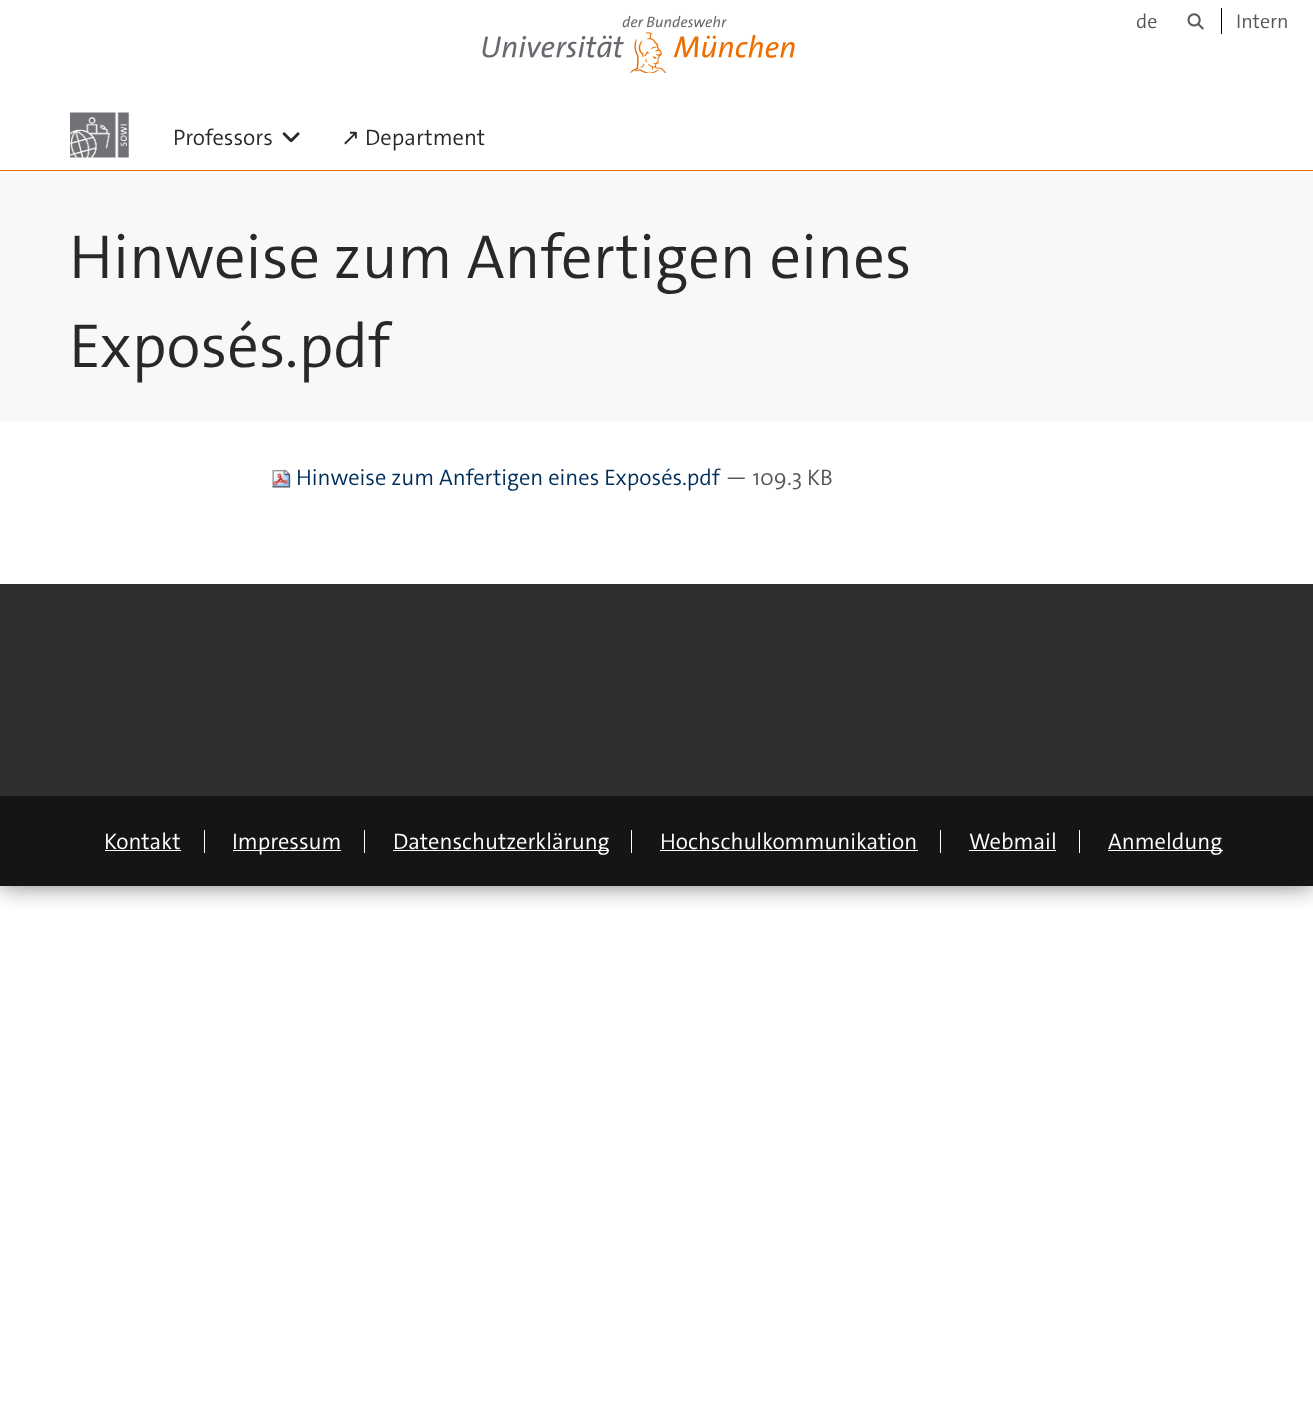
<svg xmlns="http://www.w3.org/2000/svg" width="1313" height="1408">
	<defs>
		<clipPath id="clip1"><rect x="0" y="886" width="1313" height="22" /></clipPath>
	</defs>
	<rect width="100%" height="100%" fill="#FFFFFF" />
	<g clip-path="url(#clip1)">
		<rect x="0" y="0" width="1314" height="886" fill="#000000" fill-opacity="0.5" filter="blur(12.5px)" />
	</g>
	<rect x="0" y="170" width="1313" height="1" fill="#ED6600" />
	<image x="630" y="32" width="36" height="41" href="assets/img1.png" />
	<image x="482" y="15" width="313" height="43" href="assets/img2.png" />
	<text x="1136" y="28" font-family="'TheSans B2'" font-size="20" font-weight="300" fill="#565656">de</text>
	<image x="1187" y="13" width="17" height="17" href="assets/img3.png" />
	<text x="1236" y="28" font-family="'TheSans B2'" font-size="20" font-weight="300" fill="#565656">Intern</text>
	<rect x="1221" y="8" width="1" height="26" fill="#000000" />
	<image x="70" y="112" width="59" height="46" href="assets/img4.png" />
	<text x="173" y="145" font-family="'TheSans B2'" font-size="22.5" font-weight="300" fill="#282828">Professors</text>
	<image x="282" y="132" width="18" height="11" href="assets/img5.png" />
	<text x="341" y="145" font-family="DejaVu Sans" font-size="22.5" fill="#282828">↗</text>
	<text x="365" y="145" font-family="'TheSans B2'" font-size="22.5" font-weight="300" fill="#282828">Department</text>
	<rect x="0" y="171" width="1313" height="250" fill="#F8F8F8" />
	<g font-family="'TheSans B2'" font-size="62.5" font-weight="300" fill="#282828">
		<text x="69" y="278">Hinweise zum Anfertigen eines</text>
		<text x="69" y="367">Exposés.pdf</text>
	</g>
	<image x="272" y="469" width="19" height="19" href="assets/img6.png" />
	<text x="296" y="485" font-family="'TheSans B2'" font-size="22.5" font-weight="300" fill="#002E5B">Hinweise zum Anfertigen eines Exposés.pdf</text>
	<text x="725" y="485" font-family="'TheSans B2'" font-size="22.5" font-weight="300" fill="#565656">— 109.3 KB</text>
	<rect x="0" y="584" width="1313" height="212" fill="#2E2E2E" />
	<rect x="0" y="796" width="1313" height="90" fill="#151515" />
	<rect x="204" y="830" width="1" height="23" fill="#FFFFFF" />
	<text x="104" y="849" font-family="'TheSans B2'" font-size="22.5" font-weight="300" fill="#FFFFFF">Kontakt</text>
	<rect x="105" y="850" width="76" height="1" fill="#FFFFFF" />
	<rect x="364" y="830" width="1" height="23" fill="#FFFFFF" />
	<rect x="233" y="850" width="108" height="1" fill="#FFFFFF" />
	<text x="232" y="849" font-family="'TheSans B2'" font-size="22.5" font-weight="300" fill="#FFFFFF">Impressum</text>
	<rect x="631" y="830" width="1" height="23" fill="#FFFFFF" />
	<rect x="393" y="850" width="216" height="1" fill="#FFFFFF" />
	<text x="393" y="849" font-family="'TheSans B2'" font-size="22.5" font-weight="300" fill="#FFFFFF">Datenschutzerklärung</text>
	<rect x="940" y="830" width="1" height="23" fill="#FFFFFF" />
	<text x="660" y="849" font-family="'TheSans B2'" font-size="22.5" font-weight="300" fill="#FFFFFF">Hochschulkommunikation</text>
	<rect x="660" y="850" width="258" height="1" fill="#FFFFFF" />
	<rect x="1079" y="830" width="1" height="23" fill="#FFFFFF" />
	<text x="969" y="849" font-family="'TheSans B2'" font-size="22.5" font-weight="300" fill="#FFFFFF">Webmail</text>
	<rect x="969" y="850" width="87" height="1" fill="#FFFFFF" />
	<rect x="1108" y="850" width="115" height="1" fill="#FFFFFF" />
	<text x="1108" y="849" font-family="'TheSans B2'" font-size="22.5" font-weight="300" fill="#FFFFFF">Anmeldung</text>
</svg>
